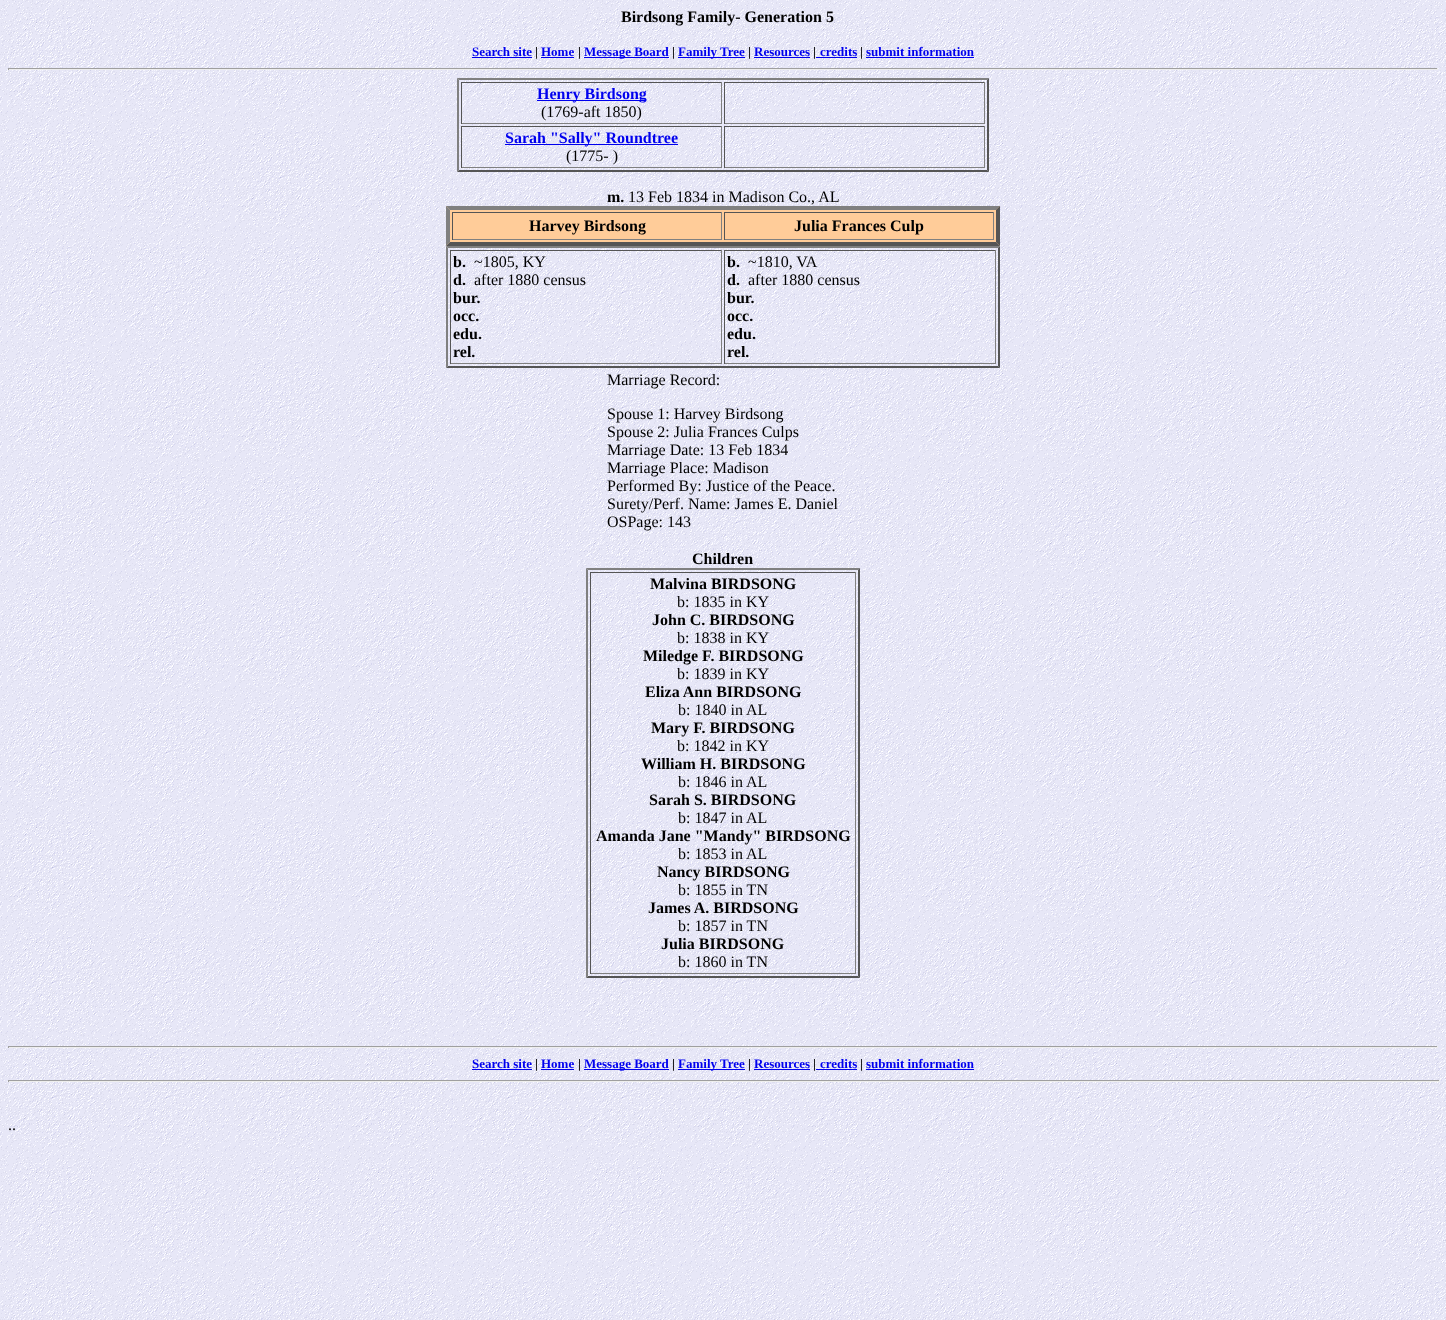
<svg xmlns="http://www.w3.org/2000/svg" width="1446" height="1320">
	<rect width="100%" height="100%" fill="#FFFFFF" />
	<image x="0" y="0" width="1446" height="1320" href="assets/img1.png" />
	<text x="621" y="22" font-family="Liberation Serif" font-size="16" font-weight="700" fill="#000000">Birdsong Family- Generation 5</text>
	<text x="472" y="56" font-family="Liberation Serif" font-size="13" font-weight="700" fill="#0000EE">Search site</text>
	<rect x="472" y="57" width="60" height="1" fill="#0000EE" />
	<text x="535" y="56" font-family="Liberation Serif" font-size="13" font-weight="700" fill="#000000">|</text>
	<text x="541" y="56" font-family="Liberation Serif" font-size="13" font-weight="700" fill="#0000EE">Home</text>
	<rect x="541" y="57" width="33" height="1" fill="#0000EE" />
	<text x="578" y="56" font-family="Liberation Serif" font-size="13" font-weight="700" fill="#000000">|</text>
	<rect x="584" y="57" width="85" height="1" fill="#0000EE" />
	<text x="584" y="56" font-family="Liberation Serif" font-size="13" font-weight="700" fill="#0000EE">Message Board</text>
	<text x="672" y="56" font-family="Liberation Serif" font-size="13" font-weight="700" fill="#000000">|</text>
	<rect x="678" y="57" width="67" height="1" fill="#0000EE" />
	<text x="678" y="56" font-family="Liberation Serif" font-size="13" font-weight="700" fill="#0000EE">Family Tree</text>
	<text x="748" y="56" font-family="Liberation Serif" font-size="13" font-weight="700" fill="#000000">|</text>
	<text x="754" y="56" font-family="Liberation Serif" font-size="13" font-weight="700" fill="#0000EE">Resources</text>
	<rect x="754" y="57" width="56" height="1" fill="#0000EE" />
	<text x="813" y="56" font-family="Liberation Serif" font-size="13" font-weight="700" fill="#000000">|</text>
	<rect x="816" y="57" width="41" height="1" fill="#0000EE" />
	<text x="820" y="56" font-family="Liberation Serif" font-size="13" font-weight="700" fill="#0000EE">credits</text>
	<text x="860" y="56" font-family="Liberation Serif" font-size="13" font-weight="700" fill="#000000">|</text>
	<text x="866" y="56" font-family="Liberation Serif" font-size="13" font-weight="700" fill="#0000EE">submit information</text>
	<rect x="866" y="57" width="108" height="1" fill="#0000EE" />
	<rect x="8" y="68" width="1430" height="1" fill="#9F9F9F" />
	<rect x="1437" y="68" width="1" height="2" fill="#EEEEEE" />
	<rect x="8" y="69" width="1430" height="1" fill="#EEEEEE" />
	<rect x="8" y="68" width="1" height="2" fill="#9F9F9F" />
	<path d="M457 78H989L987 80H459Z" fill="#808080" />
	<path d="M989 78V172L987 170V80Z" fill="#555555" />
	<path d="M989 172H457L459 170H987Z" fill="#555555" />
	<path d="M457 172V78L459 80V170Z" fill="#808080" />
	<rect x="461" y="82" width="261" height="1" fill="#555555" />
	<rect x="721" y="82" width="1" height="42" fill="#808080" />
	<rect x="461" y="123" width="261" height="1" fill="#808080" />
	<rect x="461" y="82" width="1" height="42" fill="#555555" />
	<rect x="537" y="100" width="109" height="1" fill="#0000EE" />
	<text x="537" y="99" font-family="Liberation Serif" font-size="16" font-weight="700" fill="#0000EE">Henry Birdsong</text>
	<text x="541" y="117" font-family="Liberation Serif" font-size="16" fill="#000000">(1769-aft 1850)</text>
	<rect x="724" y="82" width="261" height="1" fill="#555555" />
	<rect x="984" y="82" width="1" height="42" fill="#808080" />
	<rect x="724" y="123" width="261" height="1" fill="#808080" />
	<rect x="724" y="82" width="1" height="42" fill="#555555" />
	<rect x="461" y="126" width="261" height="1" fill="#555555" />
	<rect x="721" y="126" width="1" height="42" fill="#808080" />
	<rect x="461" y="167" width="261" height="1" fill="#808080" />
	<rect x="461" y="126" width="1" height="42" fill="#555555" />
	<rect x="505" y="144" width="173" height="1" fill="#0000EE" />
	<text x="505" y="143" font-family="Liberation Serif" font-size="16" font-weight="700" fill="#0000EE">Sarah "Sally" Roundtree</text>
	<text x="566" y="161" font-family="Liberation Serif" font-size="16" fill="#000000">(1775- )</text>
	<rect x="724" y="126" width="261" height="1" fill="#555555" />
	<rect x="984" y="126" width="1" height="42" fill="#808080" />
	<rect x="724" y="167" width="261" height="1" fill="#808080" />
	<rect x="724" y="126" width="1" height="42" fill="#555555" />
	<text x="607" y="202" font-family="Liberation Serif" font-size="16" font-weight="700" fill="#000000">m.</text>
	<text x="628" y="202" font-family="Liberation Serif" font-size="16" fill="#000000">13 Feb 1834 in Madison Co., AL</text>
	<rect x="446" y="206" width="554" height="40" fill="#FFCC99" />
	<path d="M446 206H1000L996 210H450Z" fill="#808080" />
	<path d="M1000 206V246L996 242V210Z" fill="#555555" />
	<path d="M1000 246H446L450 242H996Z" fill="#555555" />
	<path d="M446 246V206L450 210V242Z" fill="#808080" />
	<rect x="452" y="212" width="270" height="1" fill="#555555" />
	<rect x="721" y="212" width="1" height="28" fill="#808080" />
	<rect x="452" y="239" width="270" height="1" fill="#808080" />
	<rect x="452" y="212" width="1" height="28" fill="#555555" />
	<text x="529" y="231" font-family="Liberation Serif" font-size="16" font-weight="700" fill="#000000">Harvey Birdsong</text>
	<rect x="724" y="212" width="270" height="1" fill="#555555" />
	<rect x="993" y="212" width="1" height="28" fill="#808080" />
	<rect x="724" y="239" width="270" height="1" fill="#808080" />
	<rect x="724" y="212" width="1" height="28" fill="#555555" />
	<text x="794" y="231" font-family="Liberation Serif" font-size="16" font-weight="700" fill="#000000">Julia Frances Culp</text>
	<path d="M446 246H1000L998 248H448Z" fill="#808080" />
	<path d="M1000 246V368L998 366V248Z" fill="#555555" />
	<path d="M1000 368H446L448 366H998Z" fill="#555555" />
	<path d="M446 368V246L448 248V366Z" fill="#808080" />
	<rect x="450" y="250" width="272" height="1" fill="#555555" />
	<rect x="721" y="250" width="1" height="114" fill="#808080" />
	<rect x="450" y="363" width="272" height="1" fill="#808080" />
	<rect x="450" y="250" width="1" height="114" fill="#555555" />
	<text x="453" y="267" font-family="Liberation Serif" font-size="16" font-weight="700" fill="#000000">b.</text>
	<text x="474" y="267" font-family="Liberation Serif" font-size="16" fill="#000000">~1805, KY</text>
	<text x="453" y="285" font-family="Liberation Serif" font-size="16" font-weight="700" fill="#000000">d.</text>
	<text x="474" y="285" font-family="Liberation Serif" font-size="16" fill="#000000">after 1880 census</text>
	<g font-family="Liberation Serif" font-size="16" font-weight="700" fill="#000000">
		<text x="453" y="303">bur.</text>
		<text x="453" y="321">occ.</text>
		<text x="453" y="339">edu.</text>
		<text x="453" y="357">rel.</text>
	</g>
	<rect x="724" y="250" width="272" height="1" fill="#555555" />
	<rect x="995" y="250" width="1" height="114" fill="#808080" />
	<rect x="724" y="363" width="272" height="1" fill="#808080" />
	<rect x="724" y="250" width="1" height="114" fill="#555555" />
	<text x="727" y="267" font-family="Liberation Serif" font-size="16" font-weight="700" fill="#000000">b.</text>
	<text x="748" y="267" font-family="Liberation Serif" font-size="16" fill="#000000">~1810, VA</text>
	<text x="727" y="285" font-family="Liberation Serif" font-size="16" font-weight="700" fill="#000000">d.</text>
	<text x="748" y="285" font-family="Liberation Serif" font-size="16" fill="#000000">after 1880 census</text>
	<g font-family="Liberation Serif" font-size="16" font-weight="700" fill="#000000">
		<text x="727" y="303">bur.</text>
		<text x="727" y="321">occ.</text>
		<text x="727" y="339">edu.</text>
		<text x="727" y="357">rel.</text>
	</g>
	<g font-family="Liberation Serif" font-size="16" fill="#000000">
		<text x="607" y="385">Marriage Record:</text>
		<text x="607" y="419">Spouse 1: Harvey Birdsong</text>
		<text x="607" y="437">Spouse 2: Julia Frances Culps</text>
		<text x="607" y="455">Marriage Date: 13 Feb 1834</text>
		<text x="607" y="473">Marriage Place: Madison</text>
		<text x="607" y="491">Performed By: Justice of the Peace.</text>
		<text x="607" y="509">Surety/Perf. Name: James E. Daniel</text>
		<text x="607" y="527">OSPage: 143</text>
	</g>
	<text x="692" y="564" font-family="Liberation Serif" font-size="16" font-weight="700" fill="#000000">Children</text>
	<path d="M586 568H860L858 570H588Z" fill="#808080" />
	<path d="M860 568V978L858 976V570Z" fill="#555555" />
	<path d="M860 978H586L588 976H858Z" fill="#555555" />
	<path d="M586 978V568L588 570V976Z" fill="#808080" />
	<rect x="590" y="572" width="266" height="1" fill="#555555" />
	<rect x="855" y="572" width="1" height="402" fill="#808080" />
	<rect x="590" y="973" width="266" height="1" fill="#808080" />
	<rect x="590" y="572" width="1" height="402" fill="#555555" />
	<text x="650" y="589" font-family="Liberation Serif" font-size="16" font-weight="700" fill="#000000">Malvina BIRDSONG</text>
	<text x="677" y="607" font-family="Liberation Serif" font-size="16" fill="#000000">b: 1835 in KY</text>
	<text x="652" y="625" font-family="Liberation Serif" font-size="16" font-weight="700" fill="#000000">John C. BIRDSONG</text>
	<text x="677" y="643" font-family="Liberation Serif" font-size="16" fill="#000000">b: 1838 in KY</text>
	<text x="643" y="661" font-family="Liberation Serif" font-size="16" font-weight="700" fill="#000000">Miledge F. BIRDSONG</text>
	<text x="677" y="679" font-family="Liberation Serif" font-size="16" fill="#000000">b: 1839 in KY</text>
	<text x="645" y="697" font-family="Liberation Serif" font-size="16" font-weight="700" fill="#000000">Eliza Ann BIRDSONG</text>
	<text x="678" y="715" font-family="Liberation Serif" font-size="16" fill="#000000">b: 1840 in AL</text>
	<text x="651" y="733" font-family="Liberation Serif" font-size="16" font-weight="700" fill="#000000">Mary F. BIRDSONG</text>
	<text x="677" y="751" font-family="Liberation Serif" font-size="16" fill="#000000">b: 1842 in KY</text>
	<text x="641" y="769" font-family="Liberation Serif" font-size="16" font-weight="700" fill="#000000">William H. BIRDSONG</text>
	<text x="678" y="787" font-family="Liberation Serif" font-size="16" fill="#000000">b: 1846 in AL</text>
	<text x="649" y="805" font-family="Liberation Serif" font-size="16" font-weight="700" fill="#000000">Sarah S. BIRDSONG</text>
	<text x="678" y="823" font-family="Liberation Serif" font-size="16" fill="#000000">b: 1847 in AL</text>
	<text x="596" y="841" font-family="Liberation Serif" font-size="16" font-weight="700" fill="#000000">Amanda Jane "Mandy" BIRDSONG</text>
	<text x="678" y="859" font-family="Liberation Serif" font-size="16" fill="#000000">b: 1853 in AL</text>
	<text x="657" y="877" font-family="Liberation Serif" font-size="16" font-weight="700" fill="#000000">Nancy BIRDSONG</text>
	<text x="678" y="895" font-family="Liberation Serif" font-size="16" fill="#000000">b: 1855 in TN</text>
	<text x="648" y="913" font-family="Liberation Serif" font-size="16" font-weight="700" fill="#000000">James A. BIRDSONG</text>
	<text x="678" y="931" font-family="Liberation Serif" font-size="16" fill="#000000">b: 1857 in TN</text>
	<text x="661" y="949" font-family="Liberation Serif" font-size="16" font-weight="700" fill="#000000">Julia BIRDSONG</text>
	<text x="678" y="967" font-family="Liberation Serif" font-size="16" fill="#000000">b: 1860 in TN</text>
	<rect x="8" y="1046" width="1430" height="1" fill="#9F9F9F" />
	<rect x="1437" y="1046" width="1" height="2" fill="#EEEEEE" />
	<rect x="8" y="1047" width="1430" height="1" fill="#EEEEEE" />
	<rect x="8" y="1046" width="1" height="2" fill="#9F9F9F" />
	<text x="472" y="1068" font-family="Liberation Serif" font-size="13" font-weight="700" fill="#0000EE">Search site</text>
	<rect x="472" y="1069" width="60" height="1" fill="#0000EE" />
	<text x="535" y="1068" font-family="Liberation Serif" font-size="13" font-weight="700" fill="#000000">|</text>
	<text x="541" y="1068" font-family="Liberation Serif" font-size="13" font-weight="700" fill="#0000EE">Home</text>
	<rect x="541" y="1069" width="33" height="1" fill="#0000EE" />
	<text x="578" y="1068" font-family="Liberation Serif" font-size="13" font-weight="700" fill="#000000">|</text>
	<rect x="584" y="1069" width="85" height="1" fill="#0000EE" />
	<text x="584" y="1068" font-family="Liberation Serif" font-size="13" font-weight="700" fill="#0000EE">Message Board</text>
	<text x="672" y="1068" font-family="Liberation Serif" font-size="13" font-weight="700" fill="#000000">|</text>
	<rect x="678" y="1069" width="67" height="1" fill="#0000EE" />
	<text x="678" y="1068" font-family="Liberation Serif" font-size="13" font-weight="700" fill="#0000EE">Family Tree</text>
	<text x="748" y="1068" font-family="Liberation Serif" font-size="13" font-weight="700" fill="#000000">|</text>
	<text x="754" y="1068" font-family="Liberation Serif" font-size="13" font-weight="700" fill="#0000EE">Resources</text>
	<rect x="754" y="1069" width="56" height="1" fill="#0000EE" />
	<text x="813" y="1068" font-family="Liberation Serif" font-size="13" font-weight="700" fill="#000000">|</text>
	<rect x="816" y="1069" width="41" height="1" fill="#0000EE" />
	<text x="820" y="1068" font-family="Liberation Serif" font-size="13" font-weight="700" fill="#0000EE">credits</text>
	<text x="860" y="1068" font-family="Liberation Serif" font-size="13" font-weight="700" fill="#000000">|</text>
	<text x="866" y="1068" font-family="Liberation Serif" font-size="13" font-weight="700" fill="#0000EE">submit information</text>
	<rect x="866" y="1069" width="108" height="1" fill="#0000EE" />
	<rect x="8" y="1080" width="1432" height="1" fill="#9F9F9F" />
	<rect x="1439" y="1080" width="1" height="2" fill="#EEEEEE" />
	<rect x="8" y="1081" width="1432" height="1" fill="#EEEEEE" />
	<rect x="8" y="1080" width="1" height="2" fill="#9F9F9F" />
	<text x="8" y="1130" font-family="Liberation Serif" font-size="16" fill="#000000">..</text>
</svg>
